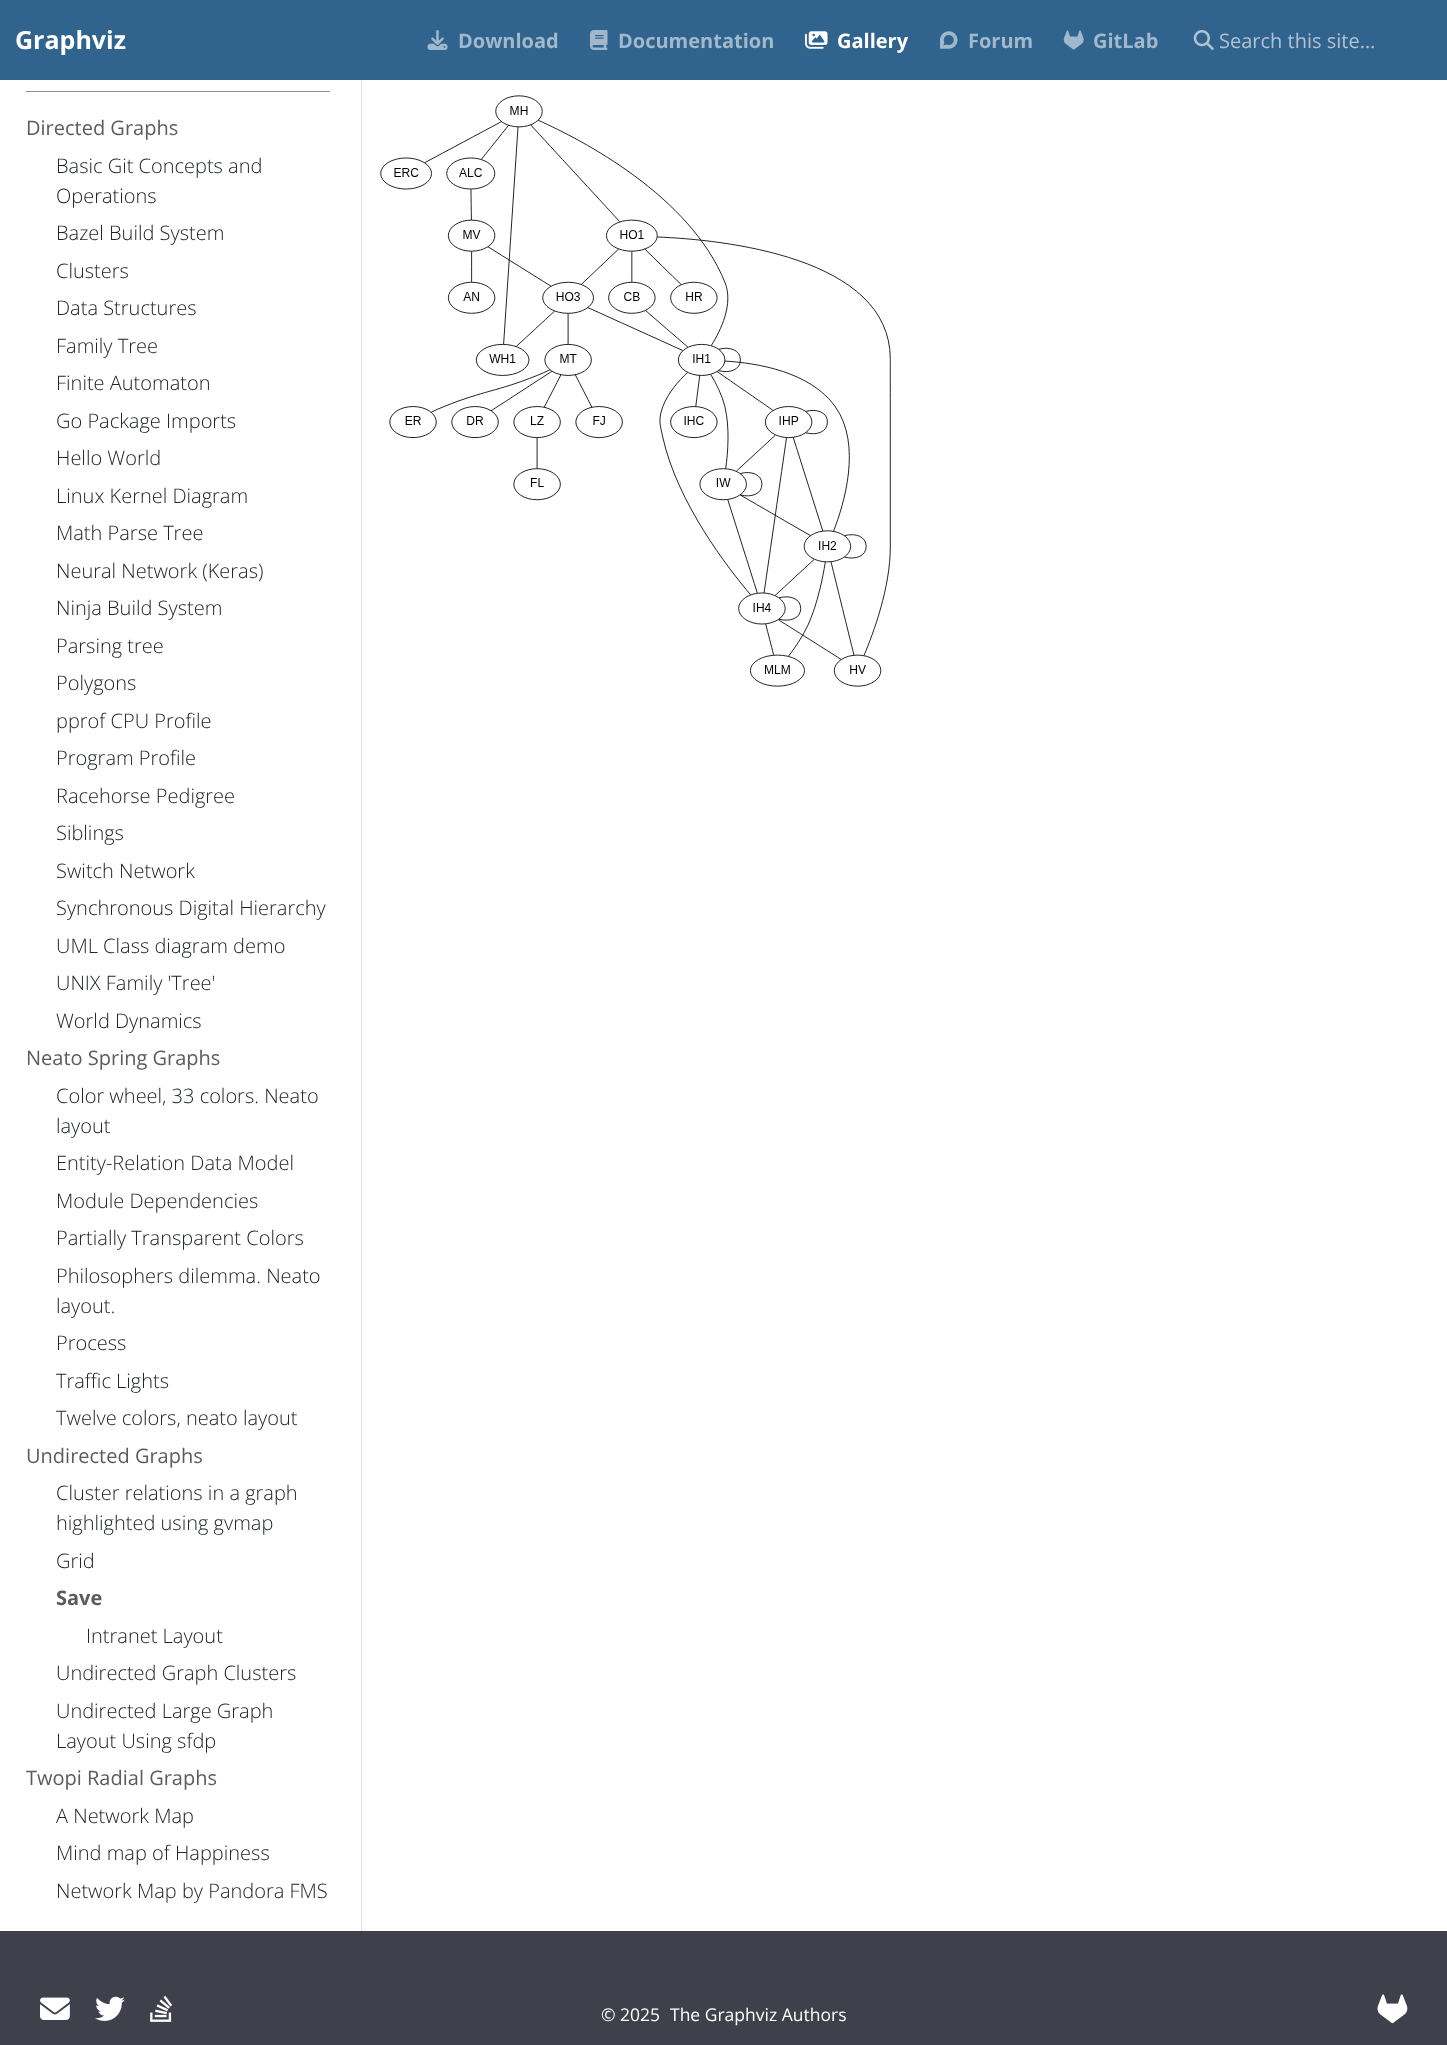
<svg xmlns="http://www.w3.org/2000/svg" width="1447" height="2045">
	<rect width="100%" height="100%" fill="#FFFFFF" />
	<rect x="0" y="0" width="1447" height="80" fill="#30638E" />
	<text x="15" y="49" font-family="Open Sans" font-size="25" font-weight="700" fill="#FFFFFF">Graphviz</text>
	<image x="427" y="30" width="21" height="20" href="assets/img1.png" />
	<text x="458" y="48" font-family="Open Sans" font-size="20" font-weight="700" fill="#A2B9CC">Download</text>
	<image x="590" y="30" width="18" height="20" href="assets/img2.png" />
	<text x="618" y="48" font-family="Open Sans" font-size="20" font-weight="700" fill="#A2B9CC">Documentation</text>
	<image x="805" y="31" width="23" height="18" href="assets/img3.png" />
	<text x="837" y="48" font-family="Open Sans" font-size="20" font-weight="700" fill="#FFFFFF">Gallery</text>
	<image x="940" y="31" width="18" height="18" href="assets/img4.png" />
	<text x="968" y="48" font-family="Open Sans" font-size="20" font-weight="700" fill="#A2B9CC">Forum</text>
	<image x="1063" y="30" width="21" height="20" href="assets/img5.png" />
	<text x="1093" y="48" font-family="Open Sans" font-size="20" font-weight="700" fill="#A2B9CC">GitLab</text>
	<image x="1193" y="30" width="21" height="20" href="assets/img6.png" />
	<text x="1219" y="48" font-family="Open Sans" font-size="20" fill="#B3C2D0">Search this site…</text>
	<rect x="361" y="80" width="1" height="1851" fill="#DEE2E6" />
	<rect x="26" y="91" width="304" height="1" fill="#909294" />
	<text x="26" y="135" font-family="Open Sans" font-size="20" fill="#595C5F">Directed Graphs</text>
	<g font-family="Open Sans" font-size="20" font-weight="300" fill="#212529">
		<text x="56" y="173">Basic Git Concepts and</text>
		<text x="56" y="203">Operations</text>
		<text x="56" y="240">Bazel Build System</text>
		<text x="56" y="278">Clusters</text>
		<text x="56" y="315">Data Structures</text>
		<text x="56" y="353">Family Tree</text>
		<text x="56" y="390">Finite Automaton</text>
		<text x="56" y="428">Go Package Imports</text>
		<text x="56" y="465">Hello World</text>
		<text x="56" y="503">Linux Kernel Diagram</text>
		<text x="56" y="540">Math Parse Tree</text>
		<text x="56" y="578">Neural Network (Keras)</text>
		<text x="56" y="615">Ninja Build System</text>
		<text x="56" y="653">Parsing tree</text>
		<text x="56" y="690">Polygons</text>
		<text x="56" y="728">pprof CPU Profile</text>
		<text x="56" y="765">Program Profile</text>
		<text x="56" y="803">Racehorse Pedigree</text>
		<text x="56" y="840">Siblings</text>
		<text x="56" y="878">Switch Network</text>
		<text x="56" y="915">Synchronous Digital Hierarchy</text>
		<text x="56" y="953">UML Class diagram demo</text>
		<text x="56" y="990">UNIX Family 'Tree'</text>
		<text x="56" y="1028">World Dynamics</text>
	</g>
	<text x="26" y="1065" font-family="Open Sans" font-size="20" fill="#595C5F">Neato Spring Graphs</text>
	<g font-family="Open Sans" font-size="20" font-weight="300" fill="#212529">
		<text x="56" y="1103">Color wheel, 33 colors. Neato</text>
		<text x="56" y="1133">layout</text>
		<text x="56" y="1170">Entity-Relation Data Model</text>
		<text x="56" y="1208">Module Dependencies</text>
		<text x="56" y="1245">Partially Transparent Colors</text>
		<text x="56" y="1283">Philosophers dilemma. Neato</text>
		<text x="56" y="1313">layout.</text>
		<text x="56" y="1350">Process</text>
		<text x="56" y="1388">Traffic Lights</text>
		<text x="56" y="1425">Twelve colors, neato layout</text>
	</g>
	<text x="26" y="1463" font-family="Open Sans" font-size="20" fill="#595C5F">Undirected Graphs</text>
	<g font-family="Open Sans" font-size="20" font-weight="300" fill="#212529">
		<text x="56" y="1500">Cluster relations in a graph</text>
		<text x="56" y="1530">highlighted using gvmap</text>
		<text x="56" y="1568">Grid</text>
	</g>
	<text x="56" y="1605" font-family="Open Sans" font-size="20" font-weight="700" fill="#595C5F">Save</text>
	<g font-family="Open Sans" font-size="20" font-weight="300" fill="#212529">
		<text x="86" y="1643">Intranet Layout</text>
		<text x="56" y="1680">Undirected Graph Clusters</text>
		<text x="56" y="1718">Undirected Large Graph</text>
		<text x="56" y="1748">Layout Using sfdp</text>
	</g>
	<text x="26" y="1785" font-family="Open Sans" font-size="20" fill="#595C5F">Twopi Radial Graphs</text>
	<g font-family="Open Sans" font-size="20" font-weight="300" fill="#212529">
		<text x="56" y="1823">A Network Map</text>
		<text x="56" y="1860">Mind map of Happiness</text>
		<text x="56" y="1898">Network Map by Pandora FMS</text>
	</g>
	<image x="380" y="95" width="511" height="592" href="assets/img7.png" />
	<rect x="0" y="1931" width="1447" height="114" fill="#403F4C" />
	<image x="40" y="1997" width="30" height="23" href="assets/img8.png" />
	<image x="95" y="1996" width="30" height="25" href="assets/img9.png" />
	<image x="150" y="1995" width="23" height="27" href="assets/img10.png" />
	<g font-family="Open Sans" font-size="17.5" fill="#FFFFFF">
		<text x="601" y="2021">© 2025</text>
		<text x="670" y="2021">The Graphviz Authors</text>
	</g>
	<image x="1377" y="1994" width="31" height="30" href="assets/img11.png" />
</svg>
